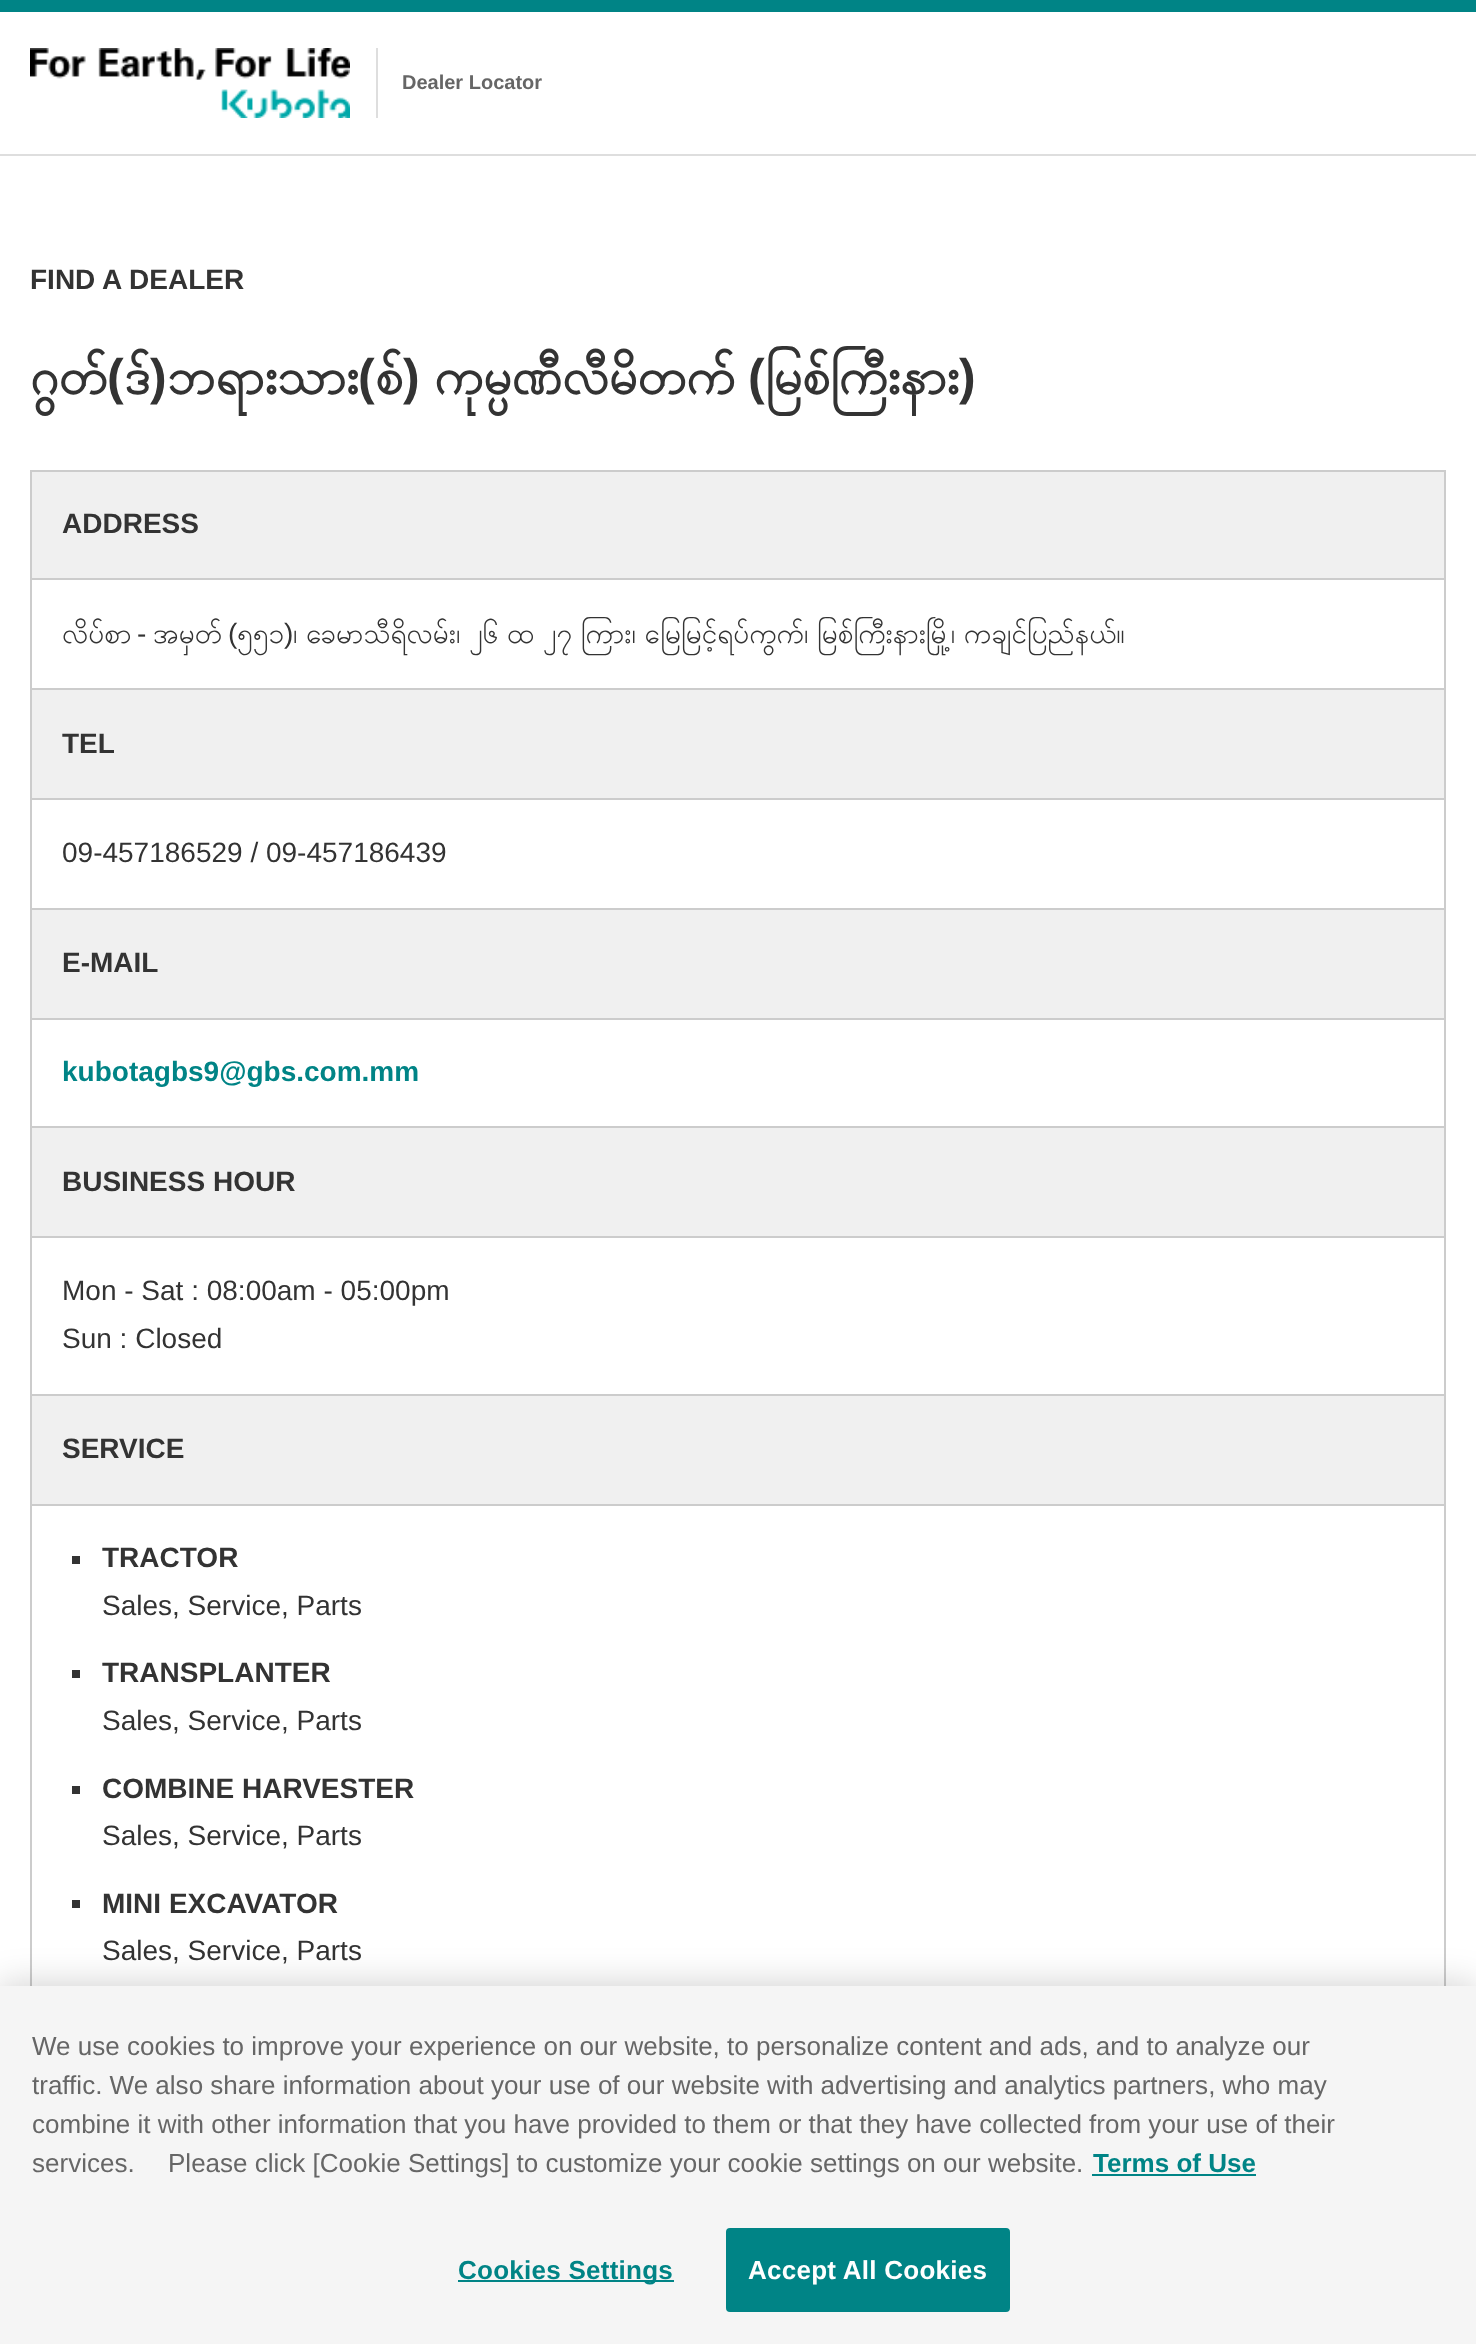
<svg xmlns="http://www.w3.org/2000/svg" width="1476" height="2344">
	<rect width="100%" height="100%" fill="#FFFFFF" />
	<rect x="0" y="154" width="1476" height="2" fill="#DEDEDE" />
	<rect x="0" y="0" width="1476" height="12" fill="#008486" />
	<rect x="376" y="48" width="2" height="70" fill="#DEDEDE" />
	<image x="30" y="48" width="320" height="70" href="assets/img1.png" />
	<text x="402" y="89" font-family="Liberation Sans" font-size="20" font-weight="700" fill="#666666">Dealer Locator</text>
	<text x="30" y="289" font-family="Liberation Sans" font-size="28" font-weight="700" fill="#333333">FIND A DEALER</text>
	<text x="30" y="394" font-family="Padauk" font-size="50" font-weight="700" fill="#333333">ဂွတ်</text>
	<text x="107" y="394" font-family="Liberation Sans" font-size="50" font-weight="700" fill="#333333">(</text>
	<text x="124" y="394" font-family="Padauk" font-size="50" font-weight="700" fill="#333333">ဒ်</text>
	<text x="358" y="394" font-family="Liberation Sans" font-size="50" font-weight="700" fill="#333333">(</text>
	<g font-family="Padauk" font-size="50" font-weight="700" fill="#333333">
		<text x="375" y="394">စ်</text>
		<text x="434" y="394">ကုမ္ပဏီလီမိတက်</text>
		<text x="765" y="394">မြစ်ကြီးနား</text>
	</g>
	<text x="150" y="394" font-family="Liberation Sans" font-size="50" font-weight="700" fill="#333333">)</text>
	<text x="167" y="394" font-family="Padauk" font-size="50" font-weight="700" fill="#333333">ဘရားသား</text>
	<g font-family="Liberation Sans" font-size="50" font-weight="700" fill="#333333">
		<text x="403" y="394">)</text>
		<text x="748" y="394">(</text>
		<text x="959" y="394">)</text>
	</g>
	<rect x="32" y="472" width="1412" height="106" fill="#F0F0F0" />
	<rect x="30" y="470" width="1416" height="2" fill="#CCCCCC" />
	<rect x="1444" y="470" width="2" height="108" fill="#CCCCCC" />
	<rect x="30" y="470" width="2" height="108" fill="#CCCCCC" />
	<text x="62" y="533" font-family="Liberation Sans" font-size="28" font-weight="700" fill="#333333">ADDRESS</text>
	<rect x="30" y="578" width="1416" height="2" fill="#CCCCCC" />
	<rect x="1444" y="578" width="2" height="110" fill="#CCCCCC" />
	<rect x="30" y="578" width="2" height="110" fill="#CCCCCC" />
	<text x="62" y="643" font-family="Padauk" font-size="28" fill="#333333">လိပ်စာ</text>
	<text x="137" y="643" font-family="Liberation Sans" font-size="28" fill="#333333">-</text>
	<text x="153" y="643" font-family="Padauk" font-size="28" fill="#333333">အမှတ်</text>
	<text x="228" y="643" font-family="Liberation Sans" font-size="28" fill="#333333">(</text>
	<text x="237" y="643" font-family="Padauk" font-size="28" fill="#333333">၅၅၁</text>
	<text x="284" y="643" font-family="Liberation Sans" font-size="28" fill="#333333">)</text>
	<text x="293" y="643" word-spacing="-1.75" font-family="Padauk" font-size="28" fill="#333333">၊ ခေမာသီရိလမ်း၊ ၂၆ ထ ၂၇ ကြား၊ မြေမြင့်ရပ်ကွက်၊ မြစ်ကြီးနားမြို့၊ ကချင်ပြည်နယ်။</text>
	<rect x="32" y="690" width="1412" height="108" fill="#F0F0F0" />
	<rect x="30" y="688" width="1416" height="2" fill="#CCCCCC" />
	<rect x="1444" y="688" width="2" height="110" fill="#CCCCCC" />
	<rect x="30" y="688" width="2" height="110" fill="#CCCCCC" />
	<text x="62" y="753" font-family="Liberation Sans" font-size="28" font-weight="700" fill="#333333">TEL</text>
	<rect x="30" y="798" width="1416" height="2" fill="#CCCCCC" />
	<rect x="1444" y="798" width="2" height="110" fill="#CCCCCC" />
	<rect x="30" y="798" width="2" height="110" fill="#CCCCCC" />
	<text x="62" y="862" font-family="Liberation Sans" font-size="28" fill="#333333">09-457186529 / 09-457186439</text>
	<rect x="32" y="910" width="1412" height="108" fill="#F0F0F0" />
	<rect x="30" y="908" width="1416" height="2" fill="#CCCCCC" />
	<rect x="1444" y="908" width="2" height="110" fill="#CCCCCC" />
	<rect x="30" y="908" width="2" height="110" fill="#CCCCCC" />
	<text x="62" y="972" font-family="Liberation Sans" font-size="28" font-weight="700" fill="#333333">E-MAIL</text>
	<rect x="30" y="1018" width="1416" height="2" fill="#CCCCCC" />
	<rect x="1444" y="1018" width="2" height="108" fill="#CCCCCC" />
	<rect x="30" y="1018" width="2" height="108" fill="#CCCCCC" />
	<text x="62" y="1081" font-family="Liberation Sans" font-size="28" font-weight="700" fill="#008486">kubotagbs9@gbs.com.mm</text>
	<rect x="32" y="1128" width="1412" height="108" fill="#F0F0F0" />
	<rect x="30" y="1126" width="1416" height="2" fill="#CCCCCC" />
	<rect x="1444" y="1126" width="2" height="110" fill="#CCCCCC" />
	<rect x="30" y="1126" width="2" height="110" fill="#CCCCCC" />
	<text x="62" y="1191" font-family="Liberation Sans" font-size="28" font-weight="700" fill="#333333">BUSINESS HOUR</text>
	<rect x="30" y="1236" width="1416" height="2" fill="#CCCCCC" />
	<rect x="1444" y="1236" width="2" height="158" fill="#CCCCCC" />
	<rect x="30" y="1236" width="2" height="158" fill="#CCCCCC" />
	<g font-family="Liberation Sans" font-size="28" fill="#333333">
		<text x="62" y="1300">Mon - Sat : 08:00am - 05:00pm</text>
		<text x="62" y="1348">Sun : Closed</text>
	</g>
	<rect x="32" y="1396" width="1412" height="108" fill="#F0F0F0" />
	<rect x="30" y="1394" width="1416" height="2" fill="#CCCCCC" />
	<rect x="1444" y="1394" width="2" height="110" fill="#CCCCCC" />
	<rect x="30" y="1394" width="2" height="110" fill="#CCCCCC" />
	<text x="62" y="1458" font-family="Liberation Sans" font-size="28" font-weight="700" fill="#333333">SERVICE</text>
	<rect x="31" y="1505" width="1414" height="502" fill="none" stroke="#CCCCCC" stroke-width="2" />
	<rect x="72" y="1556" width="8" height="8" fill="#333333" />
	<text x="102" y="1567" font-family="Liberation Sans" font-size="28" font-weight="700" fill="#333333">TRACTOR</text>
	<text x="102" y="1615" font-family="Liberation Sans" font-size="28" fill="#333333">Sales, Service, Parts</text>
	<rect x="72" y="1670" width="8" height="8" fill="#333333" />
	<text x="102" y="1682" font-family="Liberation Sans" font-size="28" font-weight="700" fill="#333333">TRANSPLANTER</text>
	<text x="102" y="1730" font-family="Liberation Sans" font-size="28" fill="#333333">Sales, Service, Parts</text>
	<rect x="72" y="1786" width="8" height="8" fill="#333333" />
	<text x="102" y="1798" font-family="Liberation Sans" font-size="28" font-weight="700" fill="#333333">COMBINE HARVESTER</text>
	<text x="102" y="1845" font-family="Liberation Sans" font-size="28" fill="#333333">Sales, Service, Parts</text>
	<rect x="72" y="1900" width="8" height="8" fill="#333333" />
	<text x="102" y="1913" font-family="Liberation Sans" font-size="28" font-weight="700" fill="#333333">MINI EXCAVATOR</text>
	<text x="102" y="1960" font-family="Liberation Sans" font-size="28" fill="#333333">Sales, Service, Parts</text>
	<rect x="0" y="1986" width="1476" height="358" fill="#000000" fill-opacity="0.2" filter="blur(18px)" />
	<rect x="0" y="1986" width="1476" height="358" fill="#F5F5F5" />
	<g font-family="Liberation Sans" font-size="26.02" fill="#666666">
		<text x="32" y="2055">We use cookies to improve your experience on our website, to personalize content and ads, and to analyze our</text>
		<text x="32" y="2094">traffic. We also share information about your use of our website with advertising and analytics partners, who may</text>
		<text x="32" y="2133">combine it with other information that you have provided to them or that they have collected from your use of their</text>
		<text x="32" y="2172">services.</text>
		<text x="168" y="2172">Please click [Cookie Settings] to customize your cookie settings on our website.</text>
	</g>
	<text x="1093" y="2172" font-family="Liberation Sans" font-size="26.02" font-weight="700" fill="#008486">Terms of Use</text>
	<rect x="1092" y="2174" width="164" height="2" fill="#008486" />
	<rect x="458" y="2280" width="216" height="2" fill="#008486" />
	<text x="458" y="2279" font-family="Liberation Sans" font-size="26.02" font-weight="700" letter-spacing="0.25" fill="#008486">Cookies Settings</text>
	<rect x="727" y="2229" width="282" height="82" rx="3" fill="#008486" stroke="#008486" stroke-width="2" />
	<text x="748" y="2279" font-family="Liberation Sans" font-size="26.02" font-weight="700" letter-spacing="0.25" fill="#FFFFFF">Accept All Cookies</text>
</svg>
